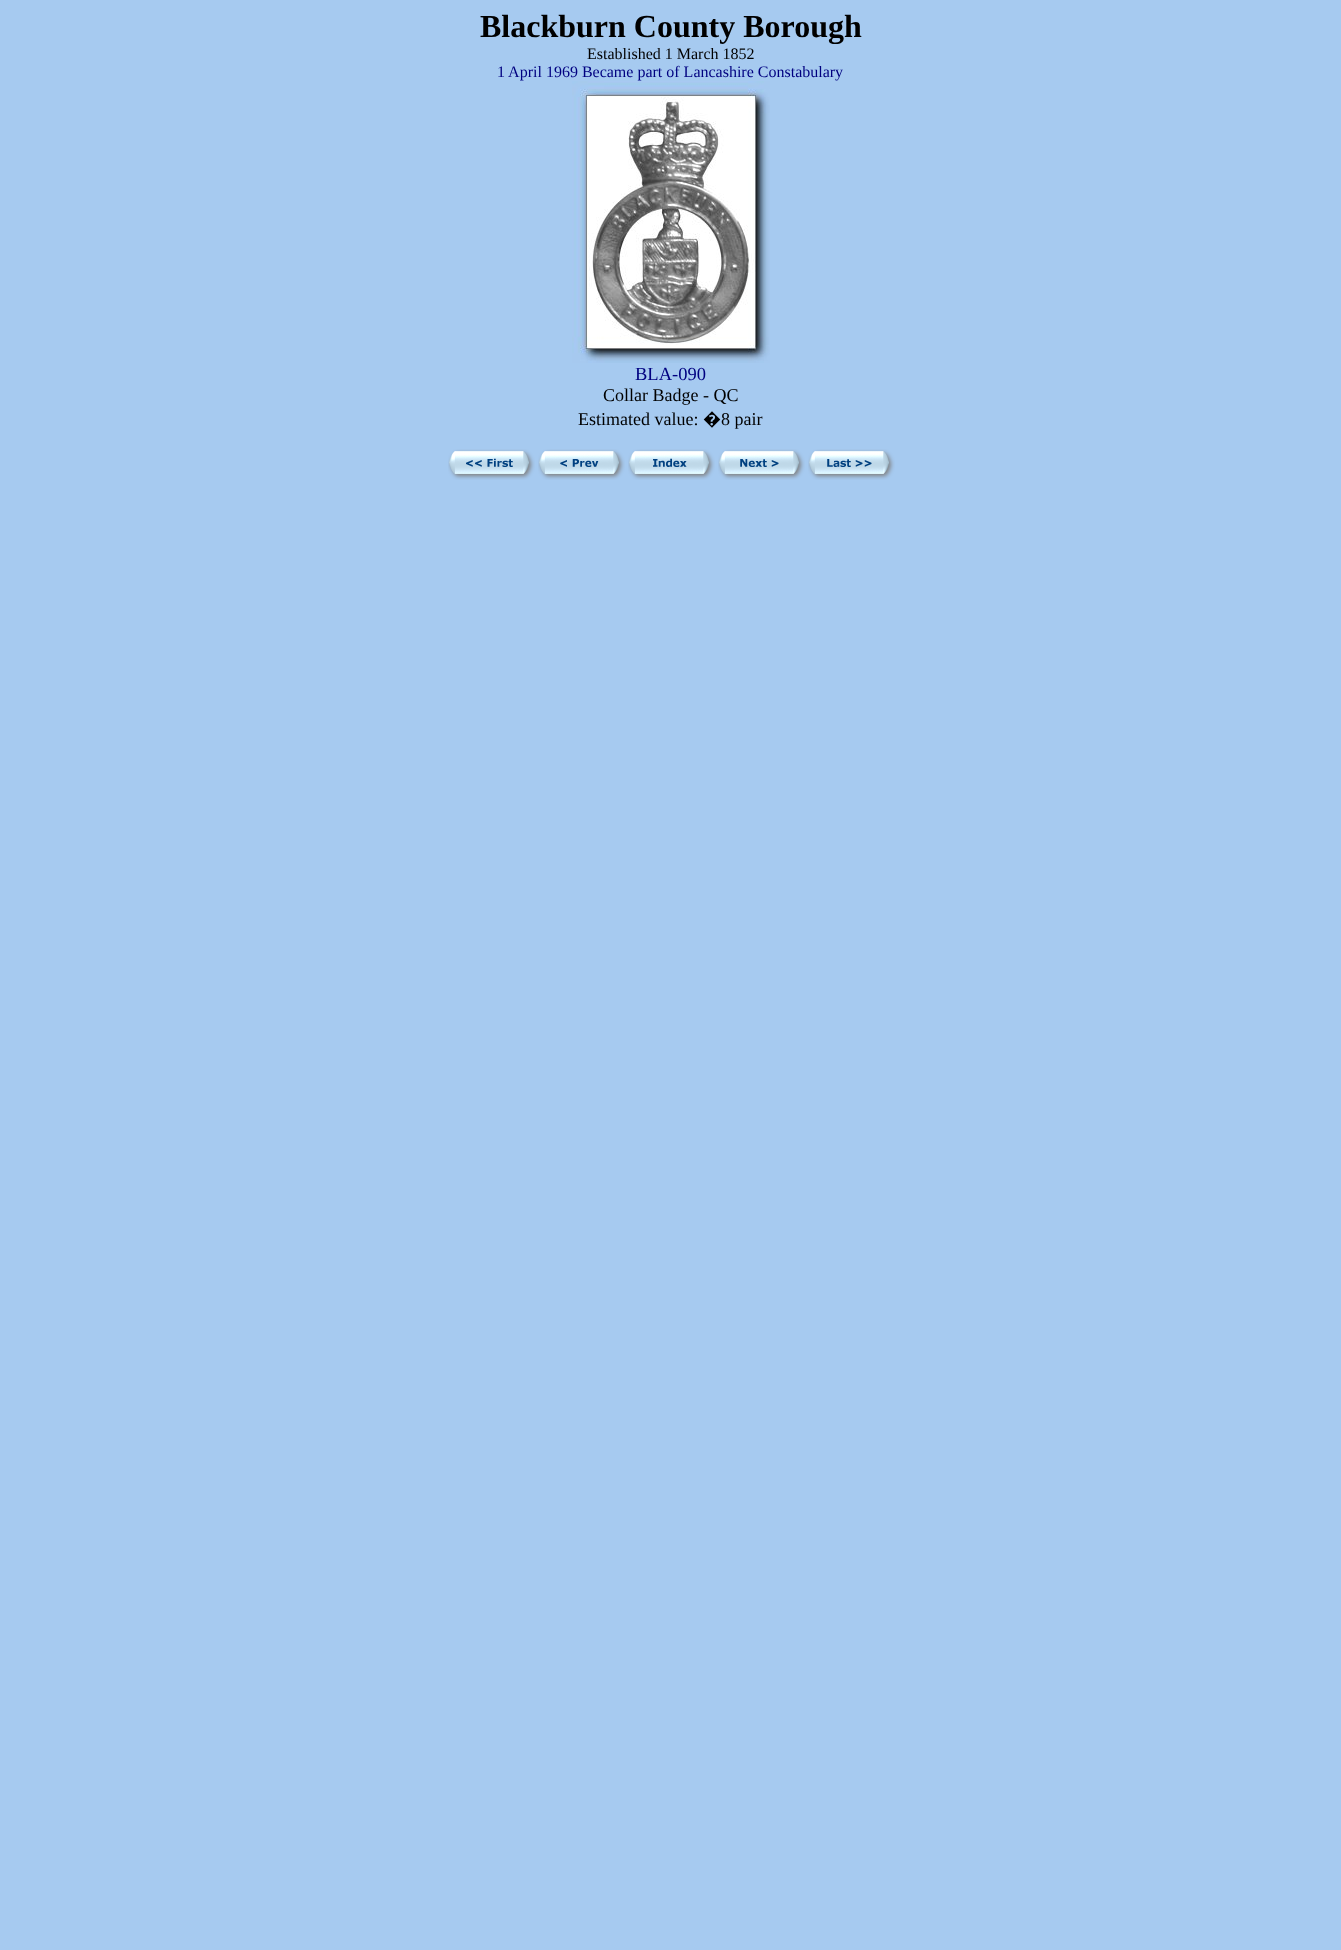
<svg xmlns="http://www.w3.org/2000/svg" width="1341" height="1950">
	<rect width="100%" height="100%" fill="#A6CAF0" />
	<text x="480" y="37" font-family="Liberation Serif" font-size="32" font-weight="700" fill="#000000">Blackburn County Borough</text>
	<text x="587" y="59" font-family="Liberation Serif" font-size="16" fill="#000000">Established 1 March 1852</text>
	<text x="497" y="77" font-family="Liberation Serif" font-size="16" fill="#000080">1 April 1969 Became part of Lancashire Constabulary</text>
	<image x="572" y="81" width="198" height="282" href="assets/img1.png" />
	<text x="635" y="380" font-family="Liberation Serif" font-size="18.5" fill="#000080">BLA-090</text>
	<g font-family="Liberation Serif" font-size="18" fill="#000000">
		<text x="603" y="401">Collar Badge - QC</text>
		<text x="578" y="425">Estimated value:</text>
	</g>
	<text x="703" y="425" font-family="Noto Sans" font-size="18" fill="#000000">�</text>
	<text x="721" y="425" font-family="Liberation Serif" font-size="18" fill="#000000">8 pair</text>
	<image x="448" y="449" width="87" height="31" href="assets/img2.png" />
	<image x="538" y="449" width="87" height="31" href="assets/img3.png" />
	<image x="628" y="449" width="87" height="31" href="assets/img4.png" />
	<image x="718" y="449" width="87" height="31" href="assets/img5.png" />
	<image x="808" y="449" width="87" height="31" href="assets/img6.png" />
</svg>
